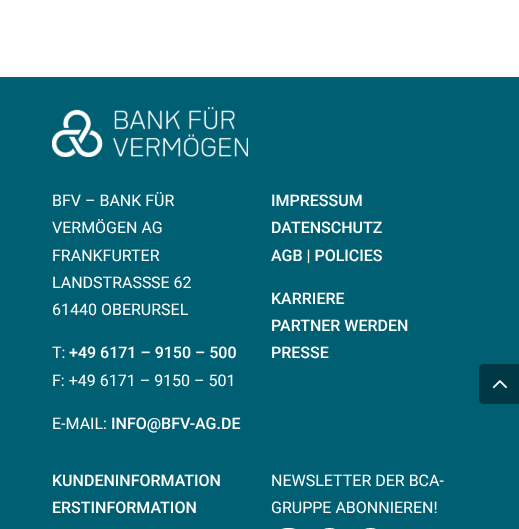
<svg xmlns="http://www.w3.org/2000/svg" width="519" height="529">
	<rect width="100%" height="100%" fill="#FFFFFF" />
	<rect x="0" y="77" width="519" height="452" fill="#005F73" />
	<image x="52" y="107" width="196" height="50" href="assets/img1.png" />
	<g font-family="Roboto" font-size="16" fill="#FFFFFF">
		<text x="52" y="206">BFV – BANK FÜR</text>
		<text x="52" y="233">VERMÖGEN AG</text>
		<text x="52" y="261">FRANKFURTER</text>
		<text x="52" y="288">LANDSTRASS</text>
		<text x="151" y="288">SE 62</text>
		<text x="52" y="315">61440 OBERURSEL</text>
		<text x="52" y="358">T:</text>
	</g>
	<text x="69" y="358" font-family="Roboto" font-size="16" font-weight="500" fill="#FFFFFF">+49 6171 – 9150 – 500</text>
	<g font-family="Roboto" font-size="16" fill="#FFFFFF">
		<text x="52" y="386">F: +49 6171 – 9150 – 501</text>
		<text x="52" y="429">E-MAIL:</text>
	</g>
	<g font-family="Roboto" font-size="16" font-weight="500" fill="#FFFFFF">
		<text x="111" y="429">INFO@BFV-AG.DE</text>
		<text x="271" y="206">IMPRESSUM</text>
		<text x="271" y="233">DATENSCHUTZ</text>
		<text x="271" y="261">AGB | POLICIES</text>
		<text x="271" y="304">KARRIERE</text>
		<text x="271" y="331">PARTNER WERDEN</text>
		<text x="271" y="358">PRESSE</text>
		<text x="52" y="486">KUNDENINFORMATION</text>
		<text x="52" y="513">ERSTINFORMATION</text>
	</g>
	<g font-family="Roboto" font-size="16" fill="#FFFFFF">
		<text x="271" y="486">NEWSLETTER DER BCA-</text>
		<text x="271" y="513">GRUPPE ABONNIEREN!</text>
	</g>
	<image x="281" y="528" width="95" height="1" href="assets/img2.png" />
	<path d="M484 364H519V404H484C481 404 479 402 479 399V369C479 366 481 364 484 364Z" fill="#003945" />
	<image x="492" y="380" width="15" height="9" href="assets/img3.png" />
</svg>
